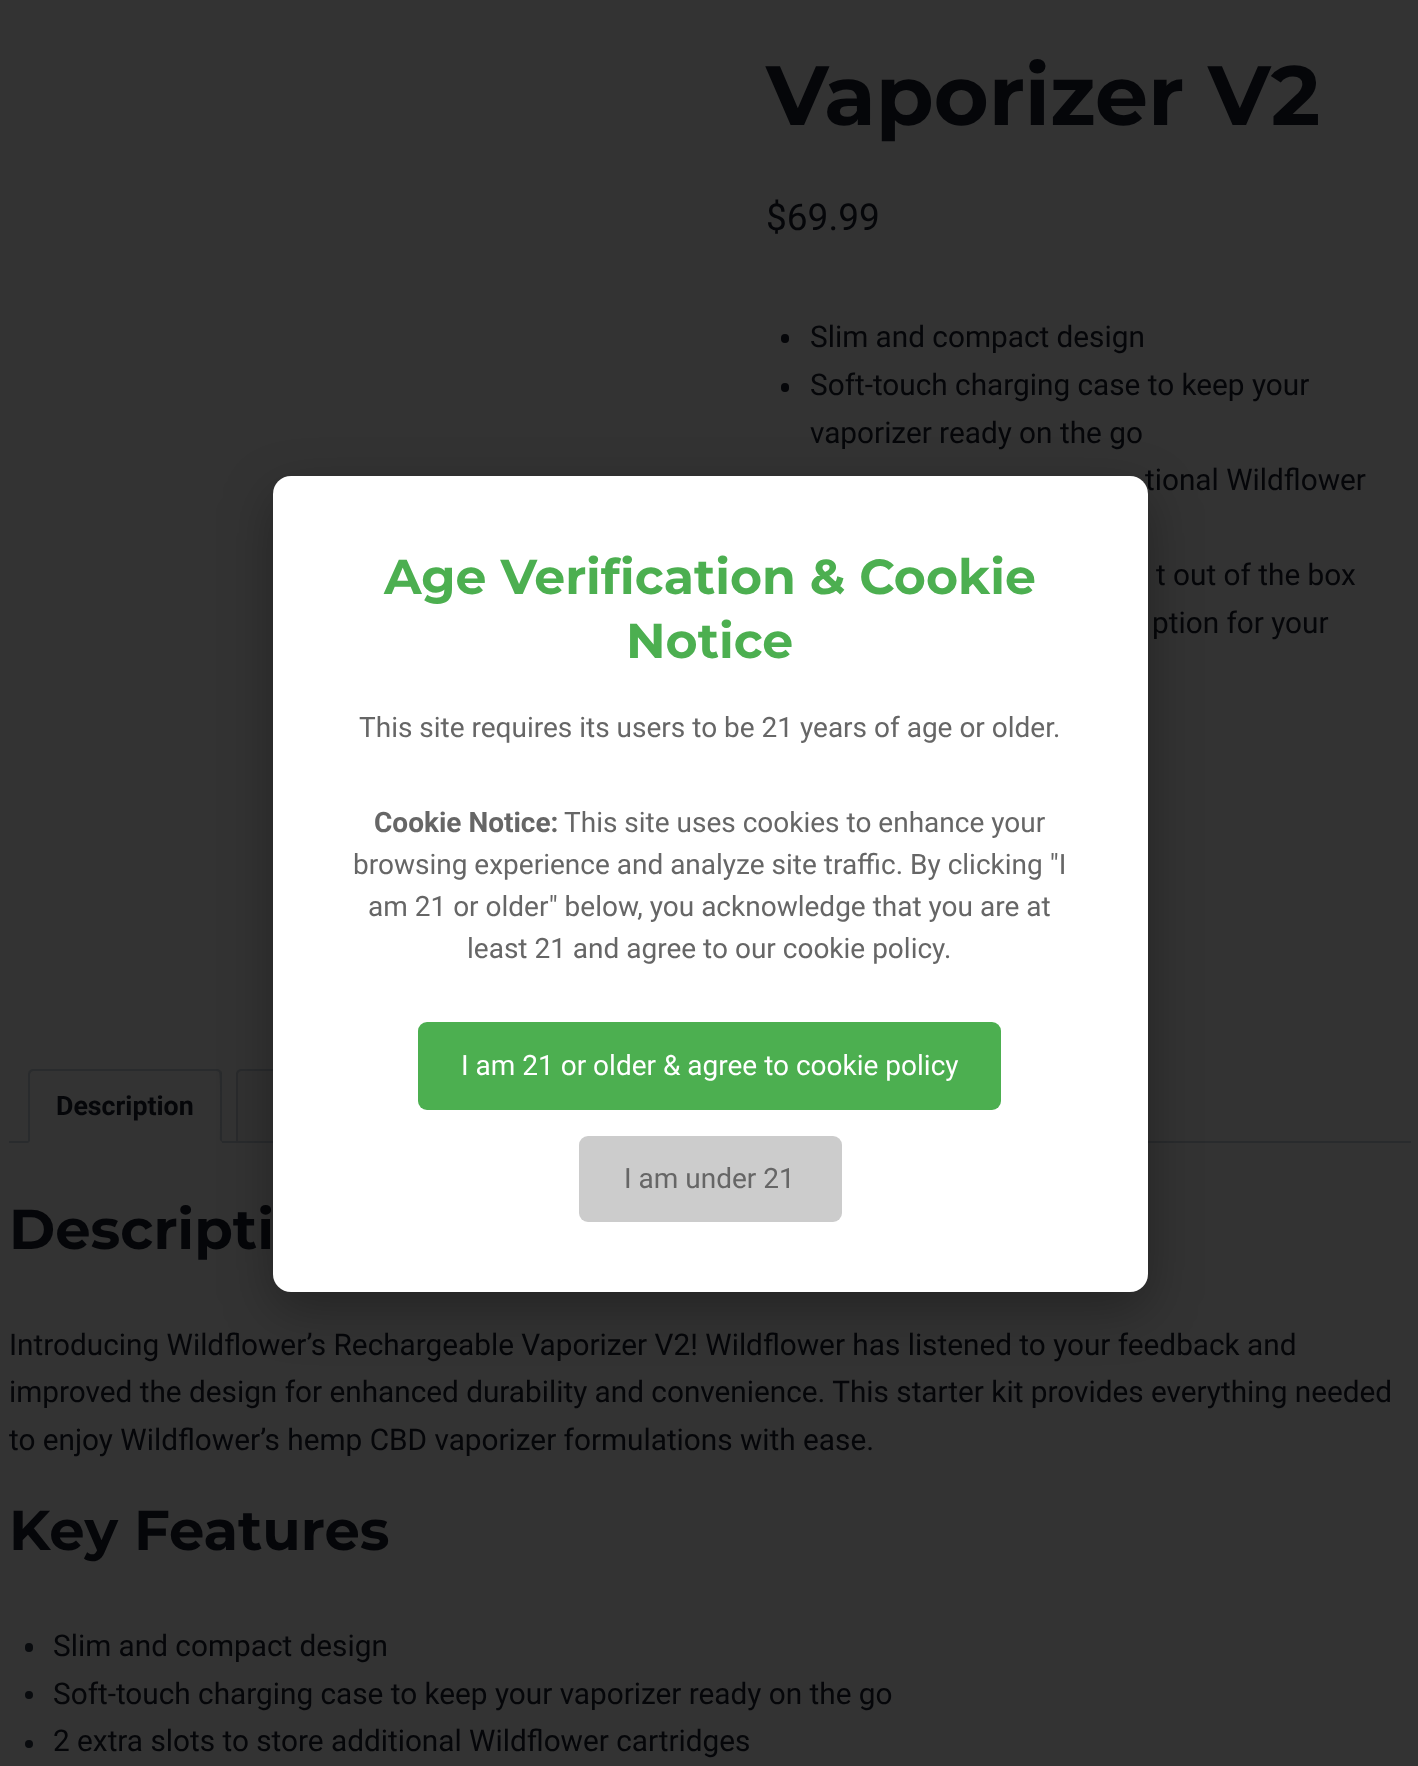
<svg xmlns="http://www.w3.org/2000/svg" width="1418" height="1766">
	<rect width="100%" height="100%" fill="#333333" />
	<text x="766" y="125" font-family="Montserrat" font-size="84" font-weight="700" fill="#050609">Vaporizer V2</text>
	<text x="766" y="230" font-family="Roboto" font-size="37" fill="#050609">$69.99</text>
	<rect x="781" y="334" width="8" height="9" rx="4" fill="#050609" />
	<text x="810" y="347" font-family="Roboto" font-size="29.75" fill="#050609">Slim and compact design</text>
	<rect x="781" y="383" width="8" height="9" rx="4" fill="#050609" />
	<g font-family="Roboto" font-size="29.75" fill="#050609">
		<text x="810" y="395">Soft-touch charging case to keep your</text>
		<text x="810" y="443">vaporizer ready on the go</text>
		<text x="1145" y="490">tional Wildflower</text>
		<text x="1156" y="585">t out of the box</text>
		<text x="1152" y="633">ption for your</text>
	</g>
	<rect x="9" y="1141" width="1402" height="2" fill="#292B2D" />
	<path d="M33 1069H217C220 1069 222 1071 222 1074V1143H28V1074C28 1071 30 1069 33 1069Z" fill="#333333" />
	<path d="M33 1071L31 1072L29 1071L32 1069H218L221 1071L219 1072L217 1071Z" fill="#292B2D" />
	<path d="M221 1071C222 1072 222 1073 222 1074V1142L220 1140C220 1133 221 1075 219 1072Z" fill="#292B2D" />
	<path d="M28 1143L30 1141V1074L31 1072L29 1071L28 1074Z" fill="#292B2D" />
	<text x="56" y="1115" font-family="Roboto" font-size="26.75" font-weight="700" fill="#050609">Description</text>
	<path d="M241 1070H422C424 1070 426 1072 426 1074V1142H237V1074C237 1072 239 1070 241 1070Z" fill="#323232" stroke="#292B2D" stroke-width="2" />
	<text x="9" y="1249" font-family="Montserrat" font-size="56" font-weight="700" fill="#050609">Descripti</text>
	<g font-family="Roboto" font-size="29.75" fill="#050609">
		<text x="9" y="1355">Introducing Wildflower’s Rechargeable Vaporizer V2! Wildflower has listened to your feedback and</text>
		<text x="9" y="1402">improved the design for enhanced durability and convenience. This starter kit provides everything needed</text>
		<text x="9" y="1450">to enjoy Wildflower’s hemp CBD vaporizer formulations with ease.</text>
	</g>
	<text x="9" y="1550" font-family="Montserrat" font-size="56" font-weight="700" fill="#050609">Key Features</text>
	<rect x="25" y="1643" width="8" height="9" rx="4" fill="#090B0E" />
	<text x="53" y="1656" font-family="Roboto" font-size="29.75" fill="#050609">Slim and compact design</text>
	<circle cx="29" cy="1695" r="4" fill="#090B0E" />
	<text x="53" y="1704" font-family="Roboto" font-size="29.75" fill="#050609">Soft-touch charging case to keep your vaporizer ready on the go</text>
	<circle cx="29" cy="1744" r="4" fill="#090B0E" />
	<text x="53" y="1751" font-family="Roboto" font-size="29.75" fill="#050609">2 extra slots to store additional Wildflower cartridges</text>
	<rect x="273" y="494" width="875" height="815" rx="18" fill="#000000" fill-opacity="0.3" filter="blur(26px)" />
	<rect x="273" y="476" width="875" height="816" rx="18" fill="#FFFFFF" />
	<g font-family="Montserrat" font-size="49" font-weight="700" fill="#4CAF50">
		<text x="384" y="594">Age Verification &amp; Cookie</text>
		<text x="626" y="658">Notice</text>
	</g>
	<text x="359" y="737" font-family="Roboto" font-size="28" fill="#666666">This site requires its users to be 21 years of age or older.</text>
	<text x="374" y="832" font-family="Roboto" font-size="28" font-weight="700" fill="#666666">Cookie Notice:</text>
	<g font-family="Roboto" font-size="28" fill="#666666">
		<text x="564" y="832">This site uses cookies to enhance your</text>
		<text x="353" y="874">browsing experience and analyze site traffic. By clicking "I</text>
		<text x="368" y="916">am 21 or older" below, you acknowledge that you are at</text>
		<text x="467" y="958">least 21 and agree to our cookie policy.</text>
	</g>
	<rect x="418" y="1022" width="583" height="88" rx="9" fill="#4CAF50" />
	<text x="461" y="1075" font-family="Roboto" font-size="28" fill="#FFFFFF">I am 21 or older &amp; agree to cookie policy</text>
	<rect x="579" y="1136" width="263" height="86" rx="9" fill="#CCCCCC" />
	<text x="624" y="1188" font-family="Roboto" font-size="28" fill="#666666">I am under 21</text>
</svg>
